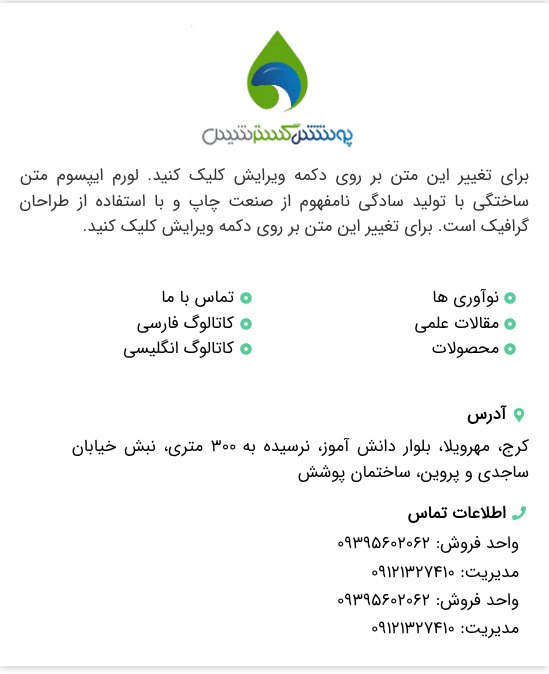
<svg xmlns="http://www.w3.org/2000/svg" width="549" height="674">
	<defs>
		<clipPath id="clip1"><path d="M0 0H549V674H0ZM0 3H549V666H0Z" clip-rule="evenodd" /></clipPath>
	</defs>
	<rect width="100%" height="100%" fill="#FFFFFF" />
	<g clip-path="url(#clip1)">
		<rect x="0" y="3" width="549" height="663" fill="#000000" fill-opacity="0.27" filter="blur(5px)" />
	</g>
	<image x="191" y="25" width="163" height="123" href="assets/img1.png" />
	<g font-family="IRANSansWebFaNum" font-size="17" direction="rtl" fill="#333333">
		<text x="529" y="180" word-spacing="3.5">برای تغییر این متن بر روی دکمه ویرایش کلیک کنید. لورم ایپسوم متن</text>
		<text x="529" y="206" word-spacing="3.25">ساختگی با تولید سادگی نامفهوم از صنعت چاپ و با استفاده از طراحان</text>
		<text x="529" y="231">گرافیک است. برای تغییر این متن بر روی دکمه ویرایش کلیک کنید.</text>
	</g>
	<image x="504" y="292" width="12" height="12" href="assets/img2.png" />
	<text x="499" y="302" font-family="IRANSansWebFaNum" font-size="17" direction="rtl" fill="#000000">نوآوری ها</text>
	<image x="504" y="318" width="12" height="12" href="assets/img2.png" />
	<text x="499" y="328" font-family="IRANSansWebFaNum" font-size="17" direction="rtl" fill="#000000">مقالات علمی</text>
	<image x="504" y="343" width="12" height="12" href="assets/img2.png" />
	<text x="499" y="353" font-family="IRANSansWebFaNum" font-size="17" direction="rtl" fill="#000000">محصولات</text>
	<image x="240" y="292" width="12" height="12" href="assets/img2.png" />
	<text x="234" y="302" font-family="IRANSansWebFaNum" font-size="17" direction="rtl" fill="#000000">تماس با ما</text>
	<image x="240" y="318" width="12" height="12" href="assets/img2.png" />
	<text x="234" y="328" font-family="IRANSansWebFaNum" font-size="17" direction="rtl" fill="#000000">کاتالوگ فارسی</text>
	<image x="240" y="343" width="12" height="12" href="assets/img2.png" />
	<text x="234" y="353" font-family="IRANSansWebFaNum" font-size="17" direction="rtl" fill="#000000">کاتالوگ انگلیسی</text>
	<image x="513" y="408" width="12" height="14" href="assets/img3.png" />
	<text x="506" y="419" font-family="IRANSansWebFaNum" font-size="17" font-weight="700" direction="rtl" fill="#000000">آدرس</text>
	<text x="529" y="451" word-spacing="2.5" font-family="IRANSansWebFaNum" font-size="17" direction="rtl" fill="#000000">کرج، مهرویلا، بلوار دانش آموز، نرسیده به</text>
	<text x="211" y="451" font-family="IRANSansWebFaNum" font-size="17" fill="#000000">300</text>
	<g font-family="IRANSansWebFaNum" font-size="17" direction="rtl" fill="#000000">
		<text x="203" y="451" word-spacing="2.5">متری، نبش خیابان</text>
		<text x="529" y="477">ساجدی و پروین، ساختمان پوشش</text>
	</g>
	<image x="512" y="506" width="14" height="14" href="assets/img4.png" />
	<text x="506" y="518" font-family="IRANSansWebFaNum" font-size="17" font-weight="700" direction="rtl" fill="#000000">اطلاعات تماس</text>
	<text x="519" y="548" font-family="IRANSansWebFaNum" font-size="17" direction="rtl" fill="#000000">واحد فروش:</text>
	<text x="337" y="548" font-family="IRANSansWebFaNum" font-size="17" fill="#000000">09395602062</text>
	<text x="519" y="577" font-family="IRANSansWebFaNum" font-size="17" direction="rtl" fill="#000000">مدیریت:</text>
	<text x="371" y="577" font-family="IRANSansWebFaNum" font-size="17" fill="#000000">09121327410</text>
	<text x="519" y="605" font-family="IRANSansWebFaNum" font-size="17" direction="rtl" fill="#000000">واحد فروش:</text>
	<text x="337" y="605" font-family="IRANSansWebFaNum" font-size="17" fill="#000000">09395602062</text>
	<text x="519" y="633" font-family="IRANSansWebFaNum" font-size="17" direction="rtl" fill="#000000">مدیریت:</text>
	<text x="371" y="633" font-family="IRANSansWebFaNum" font-size="17" fill="#000000">09121327410</text>
</svg>
